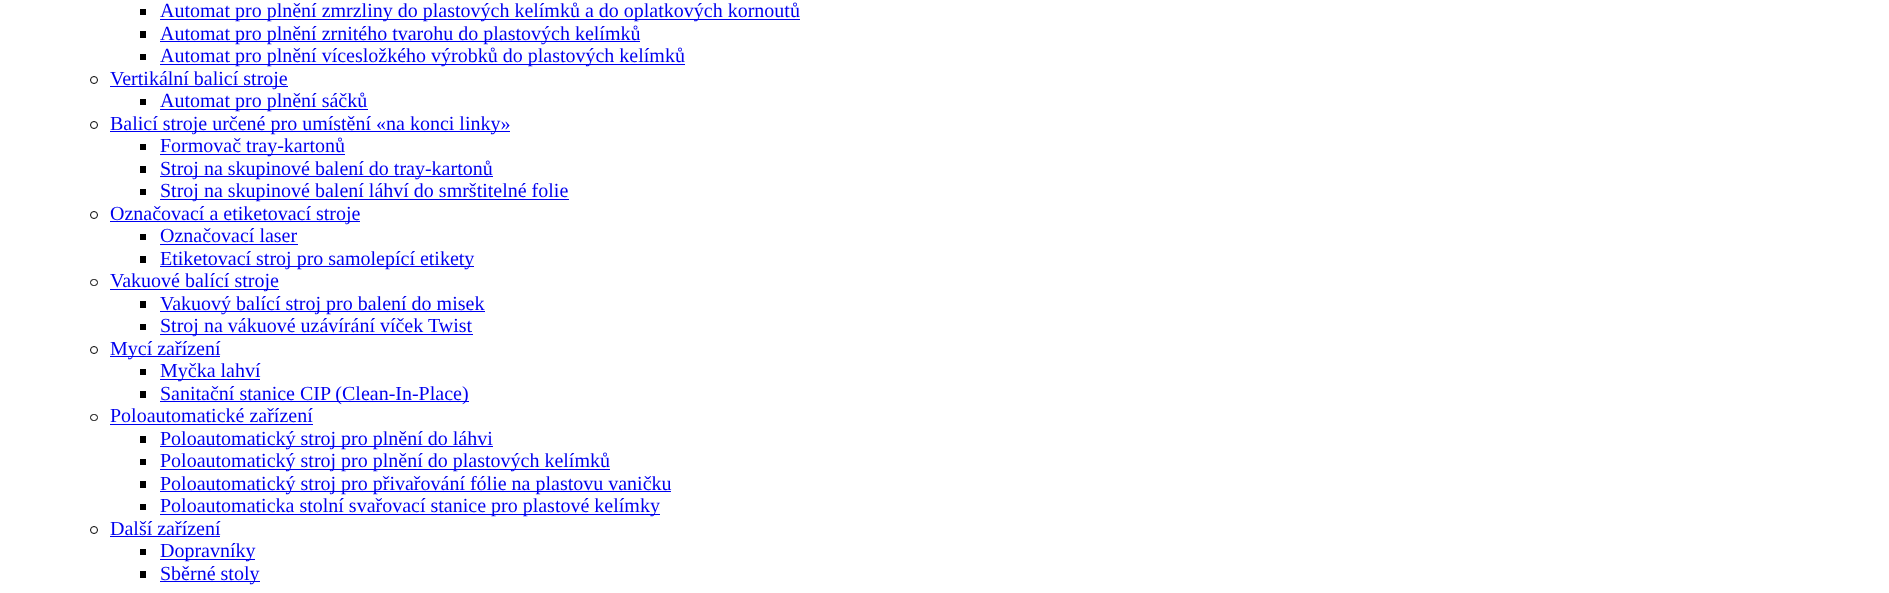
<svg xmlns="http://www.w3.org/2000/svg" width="1889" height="593">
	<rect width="100%" height="100%" fill="#FFFFFF" />
	<rect x="140" y="9" width="6" height="6" fill="#000000" />
	<rect x="160" y="19" width="640" height="1" fill="#0000EE" />
	<text x="160" y="17" font-family="Liberation Serif" font-size="20" fill="#0000EE">Automat pro plnění zmrzliny do plastových kelímků a do oplatkových kornoutů</text>
	<rect x="140" y="31" width="6" height="7" fill="#000000" />
	<rect x="160" y="41" width="480" height="1" fill="#0000EE" />
	<text x="160" y="40" font-family="Liberation Serif" font-size="20" fill="#0000EE">Automat pro plnění zrnitého tvarohu do plastových kelímků</text>
	<rect x="140" y="54" width="6" height="6" fill="#000000" />
	<rect x="160" y="64" width="525" height="1" fill="#0000EE" />
	<text x="160" y="62" font-family="Liberation Serif" font-size="20" fill="#0000EE">Automat pro plnění vícesložkého výrobků do plastových kelímků</text>
	<circle cx="94" cy="80" r="3.5" fill="none" stroke="#000000" />
	<rect x="110" y="86" width="178" height="1" fill="#0000EE" />
	<text x="110" y="85" font-family="Liberation Serif" font-size="20" fill="#0000EE">Vertikální balicí stroje</text>
	<rect x="140" y="99" width="6" height="6" fill="#000000" />
	<rect x="160" y="109" width="208" height="1" fill="#0000EE" />
	<text x="160" y="107" font-family="Liberation Serif" font-size="20" fill="#0000EE">Automat pro plnění sáčků</text>
	<circle cx="94" cy="125" r="3.5" fill="none" stroke="#000000" />
	<rect x="110" y="131" width="400" height="1" fill="#0000EE" />
	<text x="110" y="130" font-family="Liberation Serif" font-size="20" fill="#0000EE">Balicí stroje určené pro umístění «na konci linky»</text>
	<rect x="140" y="144" width="6" height="6" fill="#000000" />
	<rect x="160" y="154" width="185" height="1" fill="#0000EE" />
	<text x="160" y="152" font-family="Liberation Serif" font-size="20" fill="#0000EE">Formovač tray-kartonů</text>
	<rect x="140" y="166" width="6" height="7" fill="#000000" />
	<rect x="160" y="176" width="333" height="1" fill="#0000EE" />
	<text x="160" y="175" font-family="Liberation Serif" font-size="20" fill="#0000EE">Stroj na skupinové balení do tray-kartonů</text>
	<rect x="140" y="189" width="6" height="6" fill="#000000" />
	<rect x="160" y="199" width="409" height="1" fill="#0000EE" />
	<text x="160" y="197" font-family="Liberation Serif" font-size="20" fill="#0000EE">Stroj na skupinové balení láhví do smrštitelné folie</text>
	<circle cx="94" cy="215" r="3.5" fill="none" stroke="#000000" />
	<rect x="110" y="221" width="250" height="1" fill="#0000EE" />
	<text x="110" y="220" font-family="Liberation Serif" font-size="20" fill="#0000EE">Označovací a etiketovací stroje</text>
	<rect x="140" y="234" width="6" height="6" fill="#000000" />
	<text x="160" y="242" font-family="Liberation Serif" font-size="20" fill="#0000EE">Označovací laser</text>
	<rect x="160" y="244" width="138" height="1" fill="#0000EE" />
	<rect x="140" y="256" width="6" height="7" fill="#000000" />
	<rect x="160" y="266" width="314" height="1" fill="#0000EE" />
	<text x="160" y="265" font-family="Liberation Serif" font-size="20" fill="#0000EE">Etiketovací stroj pro samolepící etikety</text>
	<rect x="90.5" y="279.5" width="7" height="6" rx="3" fill="none" stroke="#000000" />
	<rect x="110" y="289" width="169" height="1" fill="#0000EE" />
	<text x="110" y="287" font-family="Liberation Serif" font-size="20" fill="#0000EE">Vakuové balící stroje</text>
	<rect x="140" y="301" width="6" height="7" fill="#000000" />
	<rect x="160" y="311" width="325" height="1" fill="#0000EE" />
	<text x="160" y="310" font-family="Liberation Serif" font-size="20" fill="#0000EE">Vakuový balící stroj pro balení do misek</text>
	<rect x="140" y="324" width="6" height="6" fill="#000000" />
	<rect x="160" y="334" width="313" height="1" fill="#0000EE" />
	<text x="160" y="332" font-family="Liberation Serif" font-size="20" fill="#0000EE">Stroj na vákuové uzávírání víček Twist</text>
	<circle cx="94" cy="350" r="3.5" fill="none" stroke="#000000" />
	<rect x="110" y="356" width="110" height="1" fill="#0000EE" />
	<text x="110" y="355" font-family="Liberation Serif" font-size="20" fill="#0000EE">Mycí zařízení</text>
	<rect x="140" y="369" width="6" height="6" fill="#000000" />
	<rect x="160" y="379" width="100" height="1" fill="#0000EE" />
	<text x="160" y="377" font-family="Liberation Serif" font-size="20" fill="#0000EE">Myčka lahví</text>
	<rect x="140" y="391" width="6" height="7" fill="#000000" />
	<rect x="160" y="401" width="309" height="1" fill="#0000EE" />
	<text x="160" y="400" font-family="Liberation Serif" font-size="20" fill="#0000EE">Sanitační stanice CIP (Clean-In-Place)</text>
	<rect x="90.5" y="414.5" width="7" height="6" rx="3" fill="none" stroke="#000000" />
	<text x="110" y="422" font-family="Liberation Serif" font-size="20" fill="#0000EE">Poloautomatické zařízení</text>
	<rect x="110" y="424" width="203" height="1" fill="#0000EE" />
	<rect x="140" y="436" width="6" height="7" fill="#000000" />
	<rect x="160" y="446" width="333" height="1" fill="#0000EE" />
	<text x="160" y="445" font-family="Liberation Serif" font-size="20" fill="#0000EE">Poloautomatický stroj pro plnění do láhvi</text>
	<rect x="140" y="459" width="6" height="6" fill="#000000" />
	<rect x="160" y="469" width="450" height="1" fill="#0000EE" />
	<text x="160" y="467" font-family="Liberation Serif" font-size="20" fill="#0000EE">Poloautomatický stroj pro plnění do plastových kelímků</text>
	<rect x="140" y="481" width="6" height="7" fill="#000000" />
	<rect x="160" y="491" width="511" height="1" fill="#0000EE" />
	<text x="160" y="490" font-family="Liberation Serif" font-size="20" fill="#0000EE">Poloautomatický stroj pro přivařování fólie na plastovu vaničku</text>
	<rect x="140" y="504" width="6" height="6" fill="#000000" />
	<rect x="160" y="514" width="500" height="1" fill="#0000EE" />
	<text x="160" y="512" font-family="Liberation Serif" font-size="20" fill="#0000EE">Poloautomaticka stolní svařovací stanice pro plastové kelímky</text>
	<circle cx="94" cy="530" r="3.5" fill="none" stroke="#000000" />
	<text x="110" y="535" font-family="Liberation Serif" font-size="20" fill="#0000EE">Další zařízení</text>
	<rect x="110" y="536" width="110" height="1" fill="#0000EE" />
	<rect x="140" y="549" width="6" height="6" fill="#000000" />
	<rect x="160" y="559" width="95" height="1" fill="#0000EE" />
	<text x="160" y="557" font-family="Liberation Serif" font-size="20" fill="#0000EE">Dopravníky</text>
	<rect x="140" y="571" width="6" height="7" fill="#000000" />
	<rect x="160" y="581" width="100" height="1" fill="#0000EE" />
	<text x="160" y="580" font-family="Liberation Serif" font-size="20" fill="#0000EE">Sběrné stoly</text>
</svg>
